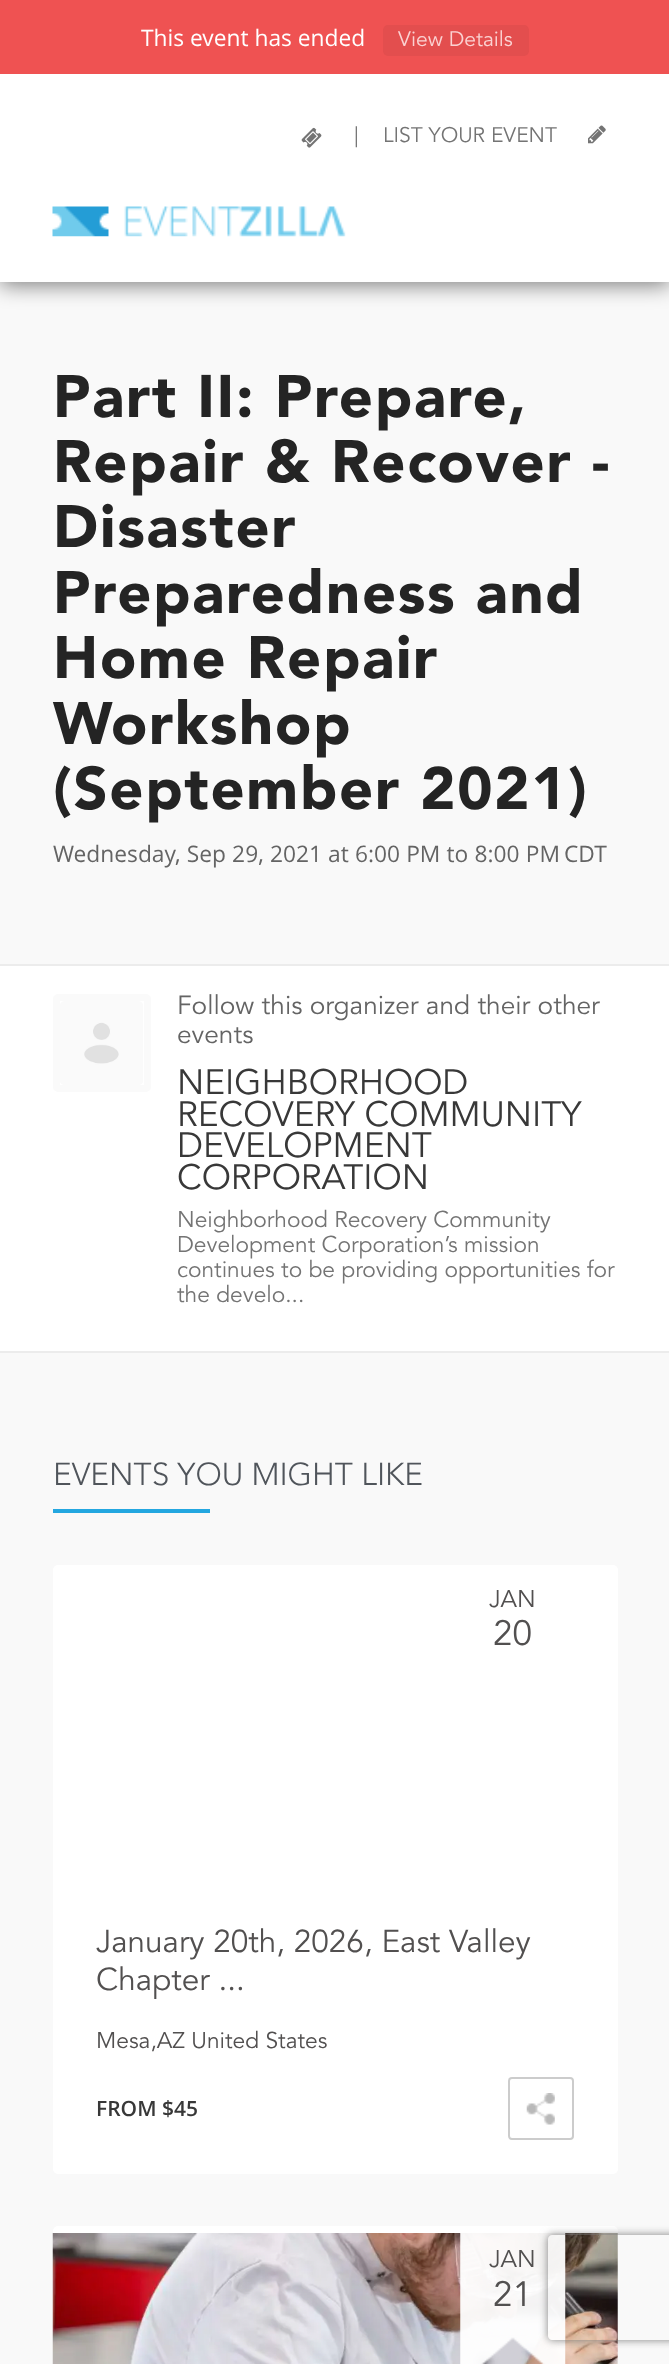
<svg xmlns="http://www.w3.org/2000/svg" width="669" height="2364">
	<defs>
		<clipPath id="clip1"><path d="M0 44H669V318H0ZM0 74H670V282H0Z" clip-rule="evenodd" /></clipPath>
		<clipPath id="clip2"><path d="M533 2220H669V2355H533ZM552 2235H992C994 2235 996 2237 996 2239V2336C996 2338 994 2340 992 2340H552C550 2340 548 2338 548 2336V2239C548 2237 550 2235 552 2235Z" clip-rule="evenodd" /></clipPath>
	</defs>
	<rect width="100%" height="100%" fill="#FFFFFF" />
	<rect x="0" y="282" width="669" height="682" fill="#F9F9F9" />
	<g clip-path="url(#clip1)">
		<rect x="0" y="77" width="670" height="208" fill="#000000" fill-opacity="0.5" filter="blur(10.5px)" />
	</g>
	<rect x="0" y="0" width="669" height="74" fill="#EF5252" />
	<text x="141" y="46" font-family="Open Sans" font-size="22.75" fill="#FFFFFF">This event has ended</text>
	<rect x="383" y="25" width="146" height="31" rx="5" fill="#E34E4E" />
	<text x="398" y="46" font-family="Avenir" font-size="21" fill="#FBD2D2">View Details</text>
	<image x="301" y="127" width="21" height="21" href="assets/img1.png" />
	<g font-family="Avenir" font-size="21" fill="#747474">
		<text x="354" y="142">|</text>
		<text x="383" y="142">LIST YOUR EVENT</text>
	</g>
	<image x="588" y="125" width="18" height="19" href="assets/img2.png" />
	<image x="52" y="206" width="294" height="31" href="assets/img3.png" />
	<g font-family="Avenir" font-size="59.5" font-weight="900" letter-spacing="1.75" fill="#242424">
		<text x="53" y="417">Part II: Prepare,</text>
		<text x="53" y="482">Repair &amp; Recover -</text>
		<text x="53" y="547">Disaster</text>
		<text x="53" y="613">Preparedness and</text>
		<text x="53" y="678">Home Repair</text>
		<text x="53" y="744">Workshop</text>
		<text x="53" y="809">(September 2021)</text>
	</g>
	<g font-family="Open Sans" font-size="22.75" fill="#646464">
		<text x="53" y="862" word-spacing="0.25">Wednesday, Sep 29, 2021 at 6:00 PM to 8:00 PM</text>
		<text x="564" y="862">CDT</text>
	</g>
	<rect x="0" y="964" width="669" height="2" fill="#ECECEC" />
	<rect x="0" y="1351" width="669" height="2" fill="#ECECEC" />
	<rect x="56.5" y="997.5" width="91" height="91" rx="1.5" fill="none" stroke="#FAFAFA" stroke-width="7" />
	<image x="60" y="1001" width="83" height="84" href="assets/img4.png" />
	<g font-family="Avenir" font-size="26.25" fill="#646464">
		<text x="177" y="1014">Follow this organizer and their other</text>
		<text x="177" y="1043">events</text>
	</g>
	<g font-family="Avenir" font-size="35" fill="#383838">
		<text x="177" y="1094">NEIGHBORHOOD</text>
		<text x="177" y="1126">RECOVERY COMMUNITY</text>
		<text x="177" y="1157">DEVELOPMENT</text>
		<text x="177" y="1189">CORPORATION</text>
	</g>
	<g font-family="Avenir" font-size="22.75" fill="#747474">
		<text x="177" y="1227">Neighborhood Recovery Community</text>
		<text x="177" y="1252">Development Corporation’s mission</text>
		<text x="177" y="1277">continues to be providing opportunities for</text>
		<text x="177" y="1302">the develo...</text>
	</g>
	<rect x="0" y="1353" width="669" height="1011" fill="#F9F9F9" />
	<text x="53" y="1485" font-family="Avenir" font-size="31.5" font-weight="300" fill="#50555B">EVENTS YOU MIGHT LIKE</text>
	<rect x="53" y="1509" width="157" height="4" fill="#24A7E0" />
	<rect x="53" y="1565" width="565" height="609" rx="5" fill="#FFFFFF" />
	<text x="489" y="1607" font-family="Avenir" font-size="24" fill="#525050">JAN</text>
	<text x="493" y="1645" font-family="Avenir" font-size="35" fill="#525050">20</text>
	<g font-family="Avenir" font-size="31.5" fill="#525050">
		<text x="96" y="1952">January 20th, 2026, East Valley</text>
		<text x="96" y="1990">Chapter ...</text>
	</g>
	<text x="96" y="2048" font-family="Avenir" font-size="22.75" fill="#525050">Mesa,AZ United States</text>
	<text x="96" y="2116" font-family="Open Sans" font-size="21" font-weight="600" fill="#383838">FROM $45</text>
	<image x="526" y="2093" width="29" height="32" href="assets/img5.png" />
	<rect x="509" y="2078" width="64" height="61" rx="3" fill="none" stroke="#CCCCCC" stroke-width="2" />
	<rect x="53" y="2226" width="565" height="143" rx="5" fill="#FFFFFF" />
	<image x="52" y="2233" width="566" height="131" href="assets/img6.png" />
	<image x="460" y="2233" width="106" height="131" href="assets/img7.png" />
	<text x="489" y="2267" font-family="Avenir" font-size="24" fill="#525050">JAN</text>
	<text x="493" y="2306" font-family="Avenir" font-size="35" fill="#525050">21</text>
	<g clip-path="url(#clip2)">
		<rect x="548" y="2235" width="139" height="105" rx="4" fill="#808080" filter="blur(4.5px)" />
	</g>
</svg>
